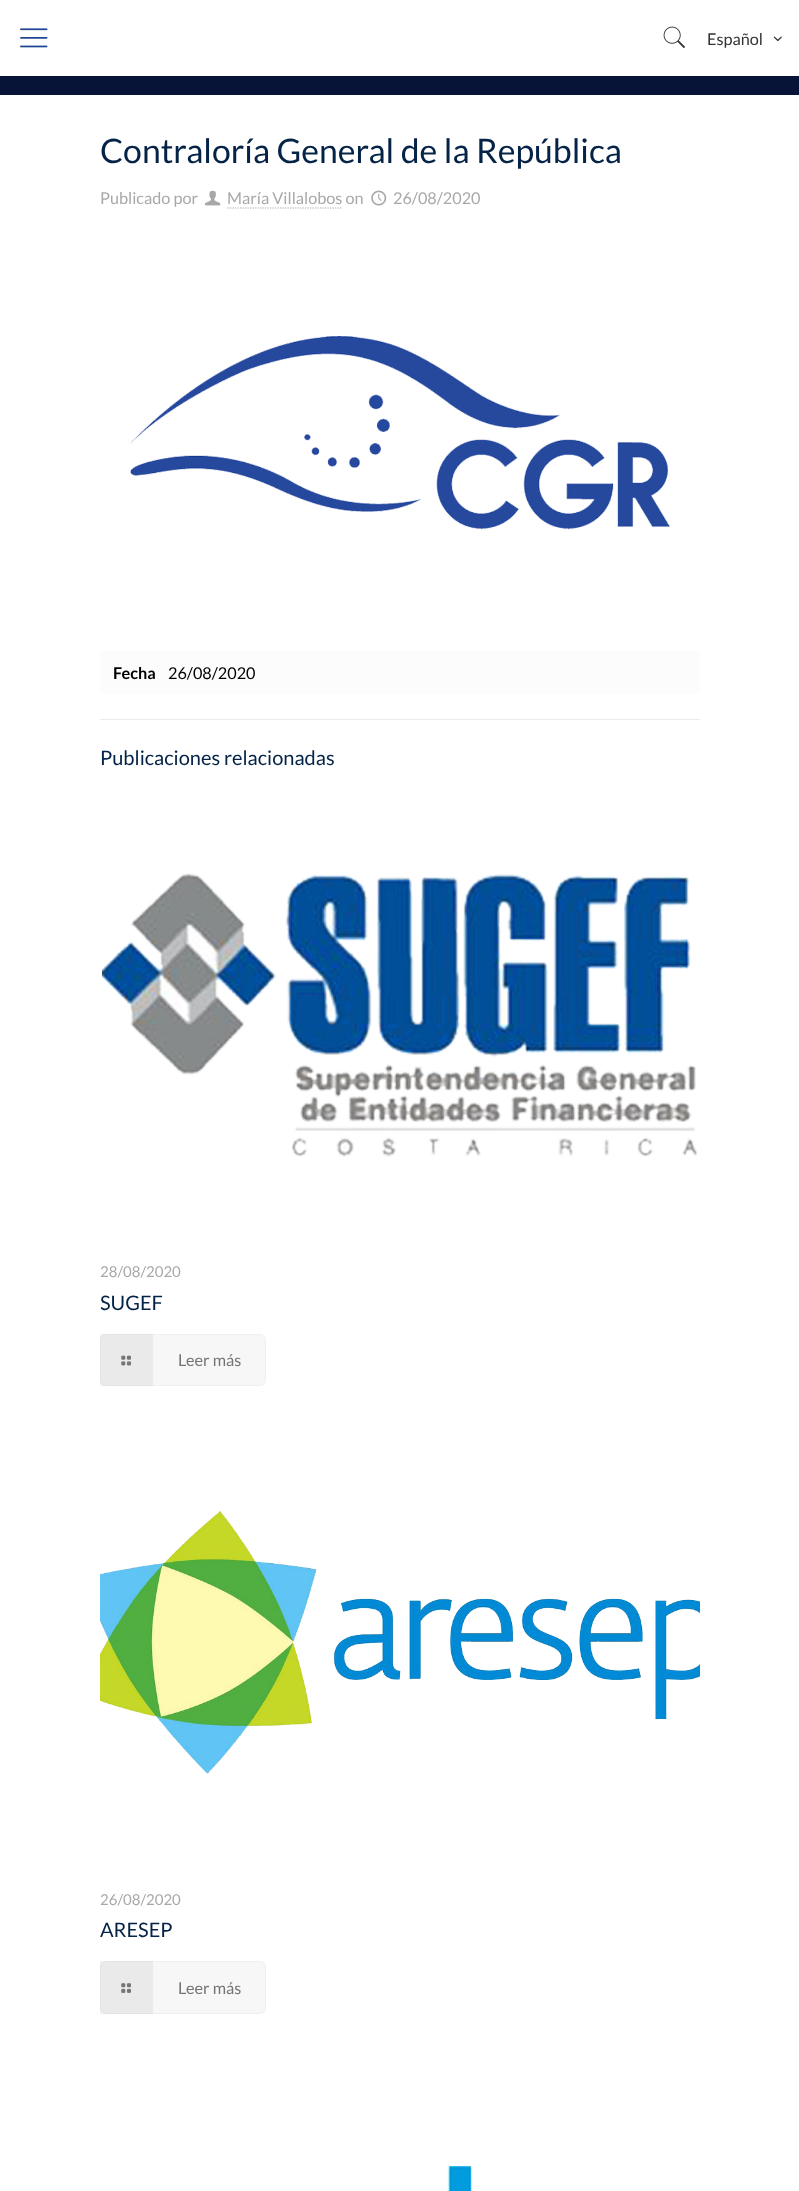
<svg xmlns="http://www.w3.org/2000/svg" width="799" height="2191">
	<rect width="100%" height="100%" fill="#FFFFFF" />
	<rect x="0" y="76" width="799" height="19" fill="#071438" />
	<image x="20" y="28" width="28" height="20" href="assets/img1.png" />
	<image x="663" y="26" width="23" height="23" href="assets/img2.png" />
	<text x="707" y="45" font-family="Lato" font-size="16.25" fill="#333333">Español</text>
	<image x="773" y="36" width="9" height="6" href="assets/img3.png" />
	<text x="100" y="163" font-family="Lato" font-size="33.75" fill="#042347">Contraloría General de la República</text>
	<text x="100" y="204" font-family="Lato" font-size="16.25" fill="#A8A8A8">Publicado por</text>
	<image x="205" y="190" width="16" height="16" href="assets/img4.png" />
	<text x="227" y="204" font-family="Lato" font-size="16.25" fill="#A8A8A8">María Villalobos on</text>
	<path d="M227.5 208H342.5" fill="none" stroke="#A8A8A8" stroke-width="1.2" stroke-dasharray="1.25 1.25" />
	<image x="371" y="190" width="16" height="16" href="assets/img5.png" />
	<text x="393" y="204" font-family="Lato" font-size="16.25" fill="#A8A8A8">26/08/2020</text>
	<image x="130" y="336" width="540" height="194" href="assets/img6.png" />
	<rect x="100" y="651" width="600" height="43" fill="#FCFCFC" />
	<text x="113" y="679" font-family="Lato" font-size="16.25" font-weight="700" fill="#000000">Fecha</text>
	<text x="168" y="679" font-family="Lato" font-size="16.25" fill="#000000">26/08/2020</text>
	<rect x="100" y="719" width="600" height="1" fill="#EBEBEB" />
	<text x="100" y="765" font-family="Lato" font-size="20" fill="#042347">Publicaciones relacionadas</text>
	<image x="102" y="873" width="596" height="284" href="assets/img7.png" />
	<text x="100" y="1277" font-family="Lato" font-size="15" fill="#A8A8A8">28/08/2020</text>
	<text x="100" y="1310" font-family="Lato" font-size="20" fill="#042347">SUGEF</text>
	<rect x="100.5" y="1334.5" width="165" height="51" rx="5.5" fill="#F7F7F7" stroke="#F0F0F0" />
	<rect x="100" y="1334" width="53" height="52" fill="#000000" fill-opacity="0.05" />
	<image x="121" y="1355" width="10" height="11" href="assets/img8.png" />
	<text x="178" y="1366" font-family="Lato" font-size="16.25" fill="#747474">Leer más</text>
	<image x="100" y="1511" width="600" height="263" href="assets/img9.png" />
	<text x="100" y="1905" font-family="Lato" font-size="15" fill="#A8A8A8">26/08/2020</text>
	<text x="100" y="1937" font-family="Lato" font-size="20" fill="#042347">ARESEP</text>
	<rect x="100.5" y="1961.5" width="165" height="52" rx="5.5" fill="#F7F7F7" stroke="#F0F0F0" />
	<rect x="100" y="1961" width="53" height="53" fill="#000000" fill-opacity="0.05" />
	<image x="121" y="1983" width="10" height="10" href="assets/img10.png" />
	<text x="178" y="1994" font-family="Lato" font-size="16.25" fill="#747474">Leer más</text>
	<image x="447" y="2166" width="26" height="25" href="assets/img11.png" />
</svg>
